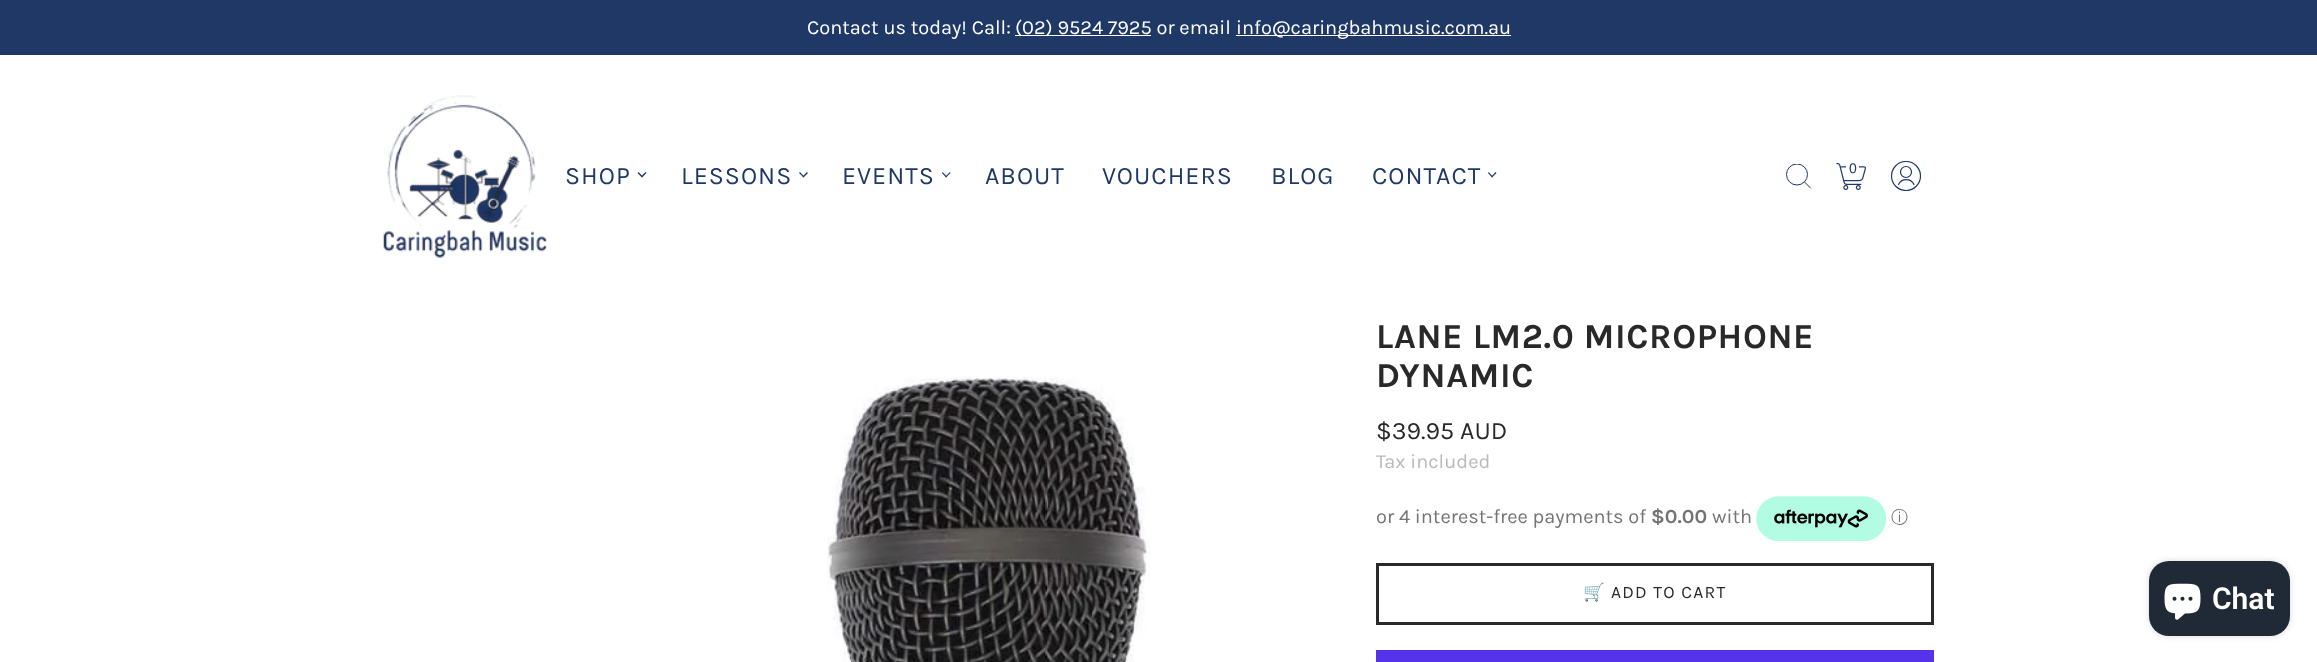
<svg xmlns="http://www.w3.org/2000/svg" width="2317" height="662">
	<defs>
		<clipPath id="clip1"><rect x="1786" y="164" width="25" height="25" /></clipPath>
		<clipPath id="clip2"><rect x="1891" y="161" width="30" height="30" /></clipPath>
	</defs>
	<rect width="100%" height="100%" fill="#FFFFFF" />
	<rect x="0" y="0" width="2317" height="55" fill="#1F3866" />
	<text x="807" y="34" font-family="Karla" font-size="20" fill="#FFFFFF">Contact us today! Call:</text>
	<rect x="1015" y="35" width="136" height="1" fill="#FFFFFF" />
	<text x="1015" y="34" font-family="Karla" font-size="20" fill="#FFFFFF">(02) 9524 7925 or email</text>
	<rect x="1236" y="35" width="275" height="1" fill="#FFFFFF" />
	<text x="1236" y="34" font-family="Karla" font-size="20" fill="#FFFFFF">info@caringbahmusic.com.au</text>
	<image x="383" y="95" width="164" height="163" href="assets/img1.png" />
	<text x="565" y="184" font-family="Karla" font-size="25" letter-spacing="1" fill="#1F3866">SHOP</text>
	<path d="M641 176.5L645.5 172L646.5 173L642 177.5Z" fill="#1F3866" />
	<path d="M637.5 173L638.5 172L643 176.5L642 177.5Z" fill="#1F3866" />
	<text x="681" y="184" font-family="Karla" font-size="25" letter-spacing="1" fill="#1F3866">LESSONS</text>
	<path d="M802.5 176.5L807 172L808 173L803.5 177.5Z" fill="#1F3866" />
	<path d="M799 173L800 172L804 176.5L803.5 177.5Z" fill="#1F3866" />
	<text x="842" y="184" font-family="Karla" font-size="25" letter-spacing="1" fill="#1F3866">EVENTS</text>
	<path d="M945.5 176.5L950 172L950.5 173L946 177.5Z" fill="#1F3866" />
	<path d="M942 173L942.5 172L947 176.5L946 177.5Z" fill="#1F3866" />
	<g font-family="Karla" font-size="25" letter-spacing="1" fill="#1F3866">
		<text x="985" y="184">ABOUT</text>
		<text x="1102" y="184">VOUCHERS</text>
		<text x="1271" y="184">BLOG</text>
		<text x="1372" y="184">CONTACT</text>
	</g>
	<path d="M1491.5 176.5L1495.5 172L1496.5 173L1492 177.5Z" fill="#1F3866" />
	<path d="M1488 173L1488.5 172L1493 176.5L1492 177.5Z" fill="#1F3866" />
	<g clip-path="url(#clip1)">
		<circle cx="1797" cy="174.5" r="10.5" fill="none" stroke="#1F3866" />
	</g>
	<path d="M1810.5 188L1804.5 182" fill="none" stroke="#1F3866" stroke-linecap="round" stroke-linejoin="round" />
	<image x="1836" y="162" width="30" height="28" href="assets/img2.png" />
	<rect x="1846" y="166" width="13" height="2" fill="#FFFFFF" />
	<text x="1849" y="173" font-family="Liberation Sans" font-size="14" fill="#1F3866">0</text>
	<g clip-path="url(#clip2)">
		<circle cx="1906" cy="176" r="14.5" fill="none" stroke="#1F3866" stroke-width="1.2" />
	</g>
	<circle cx="1906" cy="172" r="5.5" fill="none" stroke="#1F3866" stroke-width="1.2" />
	<path d="M1914 184.5C1911 178 1901.5 178 1898.5 184.5" fill="none" stroke="#1F3866" stroke-width="1.2" stroke-linecap="round" stroke-linejoin="round" />
	<image x="827" y="376" width="323" height="286" href="assets/img3.png" />
	<g font-family="Karla" font-size="35" font-weight="700" letter-spacing="0.6" fill="#292929">
		<text x="1376" y="348">LANE LM2.0 MICROPHONE</text>
		<text x="1376" y="387">DYNAMIC</text>
	</g>
	<text x="1376" y="439" font-family="Karla" font-size="25" fill="#292929">$39.95 AUD</text>
	<text x="1376" y="468" font-family="Karla" font-size="20" fill="#BABABA">Tax included</text>
	<text x="1376" y="523" font-family="Karla" font-size="20" fill="#747474">or 4 interest-free payments of</text>
	<text x="1651" y="523" font-family="Karla" font-size="20" font-weight="700" fill="#747474">$0.00</text>
	<text x="1712" y="523" font-family="Karla" font-size="20" fill="#747474">with</text>
	<image x="1756" y="496" width="130" height="45" href="assets/img4.png" />
	<text x="1891" y="523" font-family="WenQuanYi Zen Hei" font-size="17" font-weight="500" fill="#747474">ⓘ</text>
	<rect x="1377.5" y="564.5" width="555" height="59" fill="none" stroke="#292929" stroke-width="3" />
	<text x="1583" y="598" font-family="Noto Color Emoji" font-size="17.5" letter-spacing="1.25" fill="#292929">🛒</text>
	<text x="1611" y="598" font-family="Karla" font-size="17.5" letter-spacing="1.25" fill="#292929">ADD TO CART</text>
	<rect x="1376" y="650" width="558" height="12" fill="#5433EB" />
	<rect x="2149" y="561" width="141" height="75" rx="20" fill="#000000" fill-opacity="0.15" filter="blur(3px)" />
	<rect x="2149" y="561" width="141" height="75" rx="20" fill="#202A36" />
	<image x="2164" y="583" width="37" height="37" href="assets/img5.png" />
	<text x="2212" y="609" font-family="Roboto" font-size="30" font-weight="600" fill="#FFFFFF">Chat</text>
</svg>
